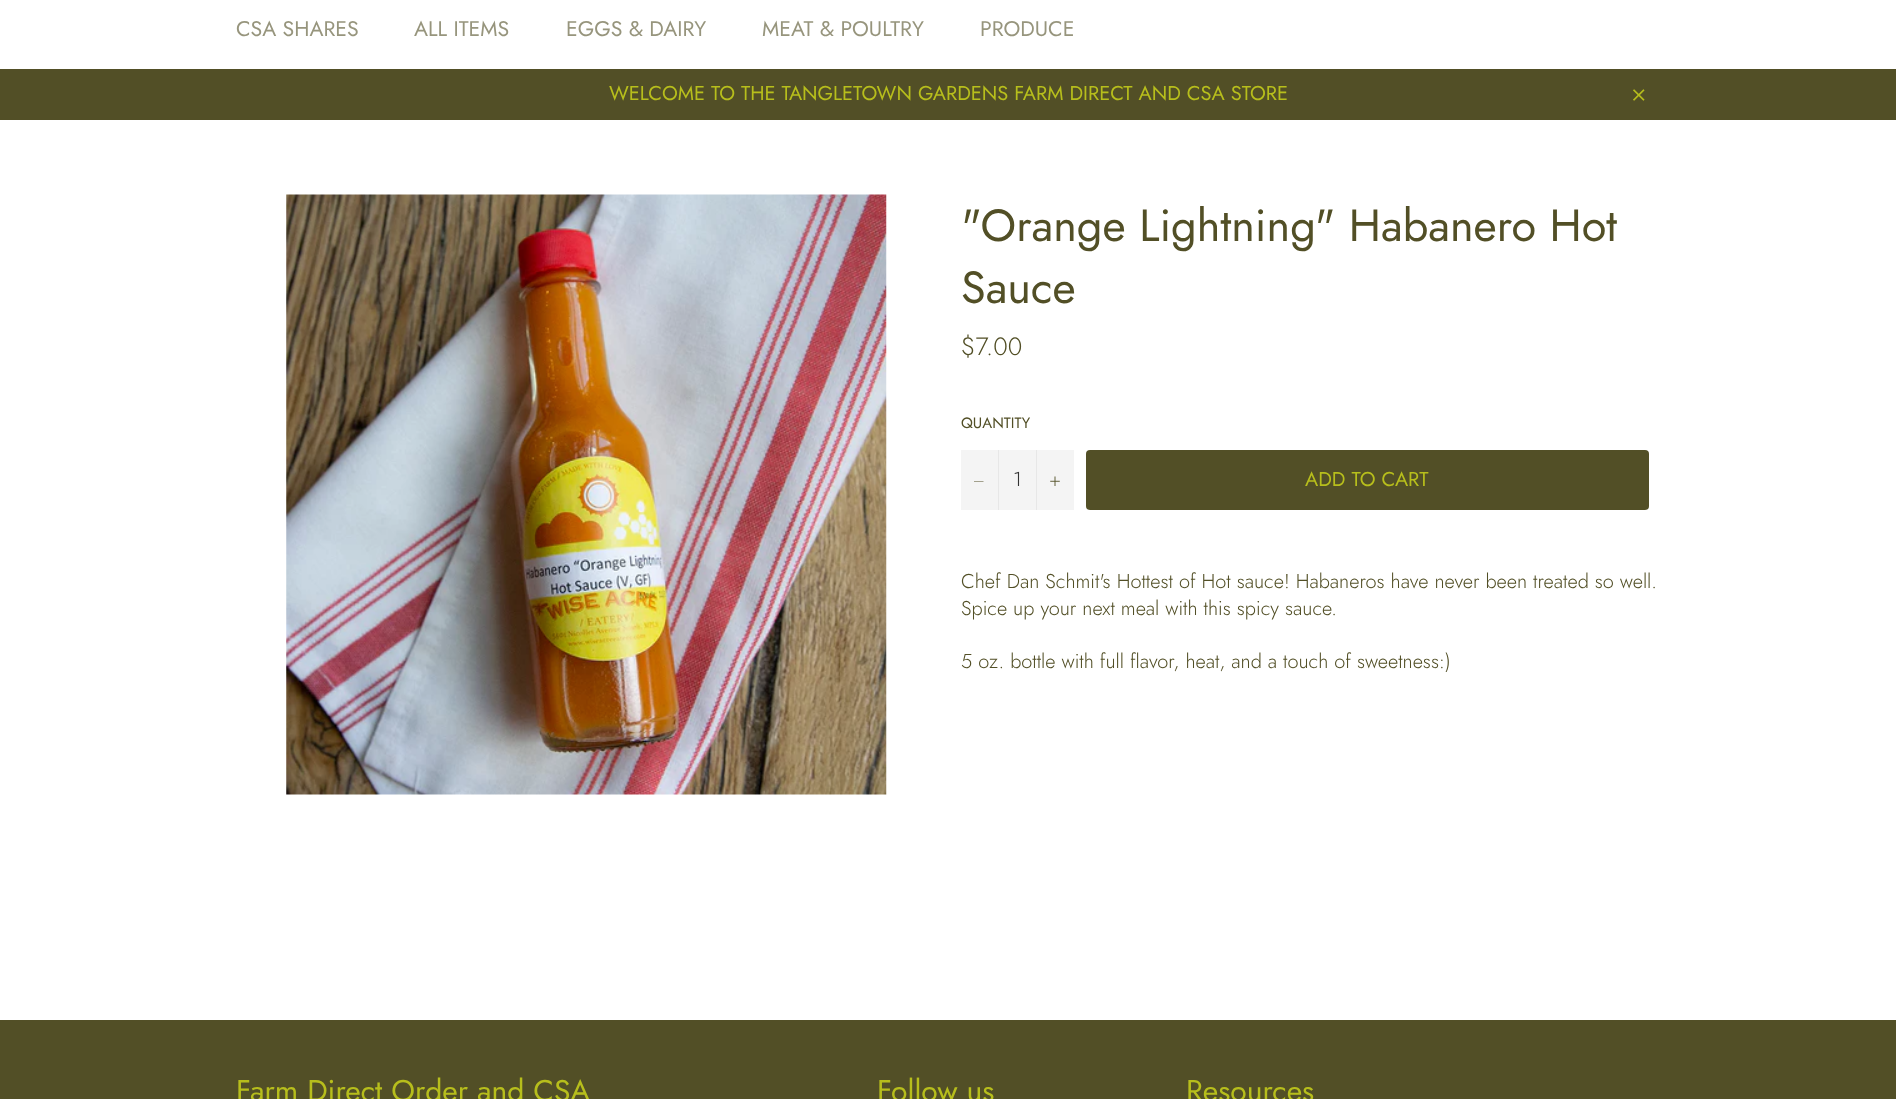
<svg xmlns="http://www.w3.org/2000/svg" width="1896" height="1099">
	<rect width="100%" height="100%" fill="#FFFFFF" />
	<g font-family="Jost" font-size="21.25" fill="#97957D">
		<text x="236" y="36">CSA SHARES</text>
		<text x="414" y="36">ALL ITEMS</text>
		<text x="566" y="36">EGGS &amp; DAIRY</text>
		<text x="762" y="36">MEAT &amp; POULTRY</text>
		<text x="980" y="36">PRODUCE</text>
	</g>
	<rect x="0" y="69" width="1896" height="51" fill="#524F26" />
	<text x="609" y="100" font-family="Jost" font-size="20" fill="#B7BE1C">WELCOME TO THE TANGLETOWN GARDENS FARM DIRECT AND CSA STORE</text>
	<image x="1633" y="89" width="12" height="12" href="assets/img1.png" />
	<image x="286" y="194" width="601" height="601" href="assets/img2.png" />
	<g font-family="Jost" font-size="45" fill="#524F26">
		<text x="961" y="241">"Orange Lightning" Habanero Hot</text>
		<text x="961" y="303">Sauce</text>
	</g>
	<text x="961" y="355" font-family="Jost" font-size="25" font-weight="300" fill="#524F26">$7.00</text>
	<text x="961" y="428" font-family="Jost" font-size="15" fill="#524F26">QUANTITY</text>
	<rect x="961" y="450" width="113" height="60" fill="#F4F4F4" />
	<rect x="998" y="450" width="1" height="60" fill="#E7E7E7" />
	<path d="M983.5 481V481.5H974V481Z" fill="#524F26" fill-rule="evenodd" />
	<text x="1013" y="486" font-family="Jost" font-size="20" font-weight="300" fill="#333333">1</text>
	<rect x="1036" y="450" width="1" height="60" fill="#E7E7E7" />
	<image x="1050" y="476" width="10" height="10" href="assets/img3.png" />
	<rect x="1086" y="450" width="563" height="60" rx="4" fill="#524F26" />
	<text x="1305" y="486" font-family="Jost" font-size="20" fill="#B7BE1C">ADD TO CART</text>
	<g font-family="Jost" font-size="20" font-weight="300" fill="#524F26">
		<text x="961" y="588">Chef Dan Schmit's Hottest of Hot sauce! Habaneros have never been treated so well.</text>
		<text x="961" y="615">Spice up your next meal with this spicy sauce.</text>
		<text x="961" y="668">5 oz. bottle with full flavor, heat, and a touch of sweetness:)</text>
	</g>
	<rect x="0" y="1020" width="1896" height="79" fill="#524F26" />
	<g font-family="Jost" font-size="30" fill="#B7BE1C">
		<text x="236" y="1101">Farm Direct Order and CSA</text>
		<text x="877" y="1101">Follow us</text>
		<text x="1186" y="1101">Resources</text>
	</g>
</svg>
